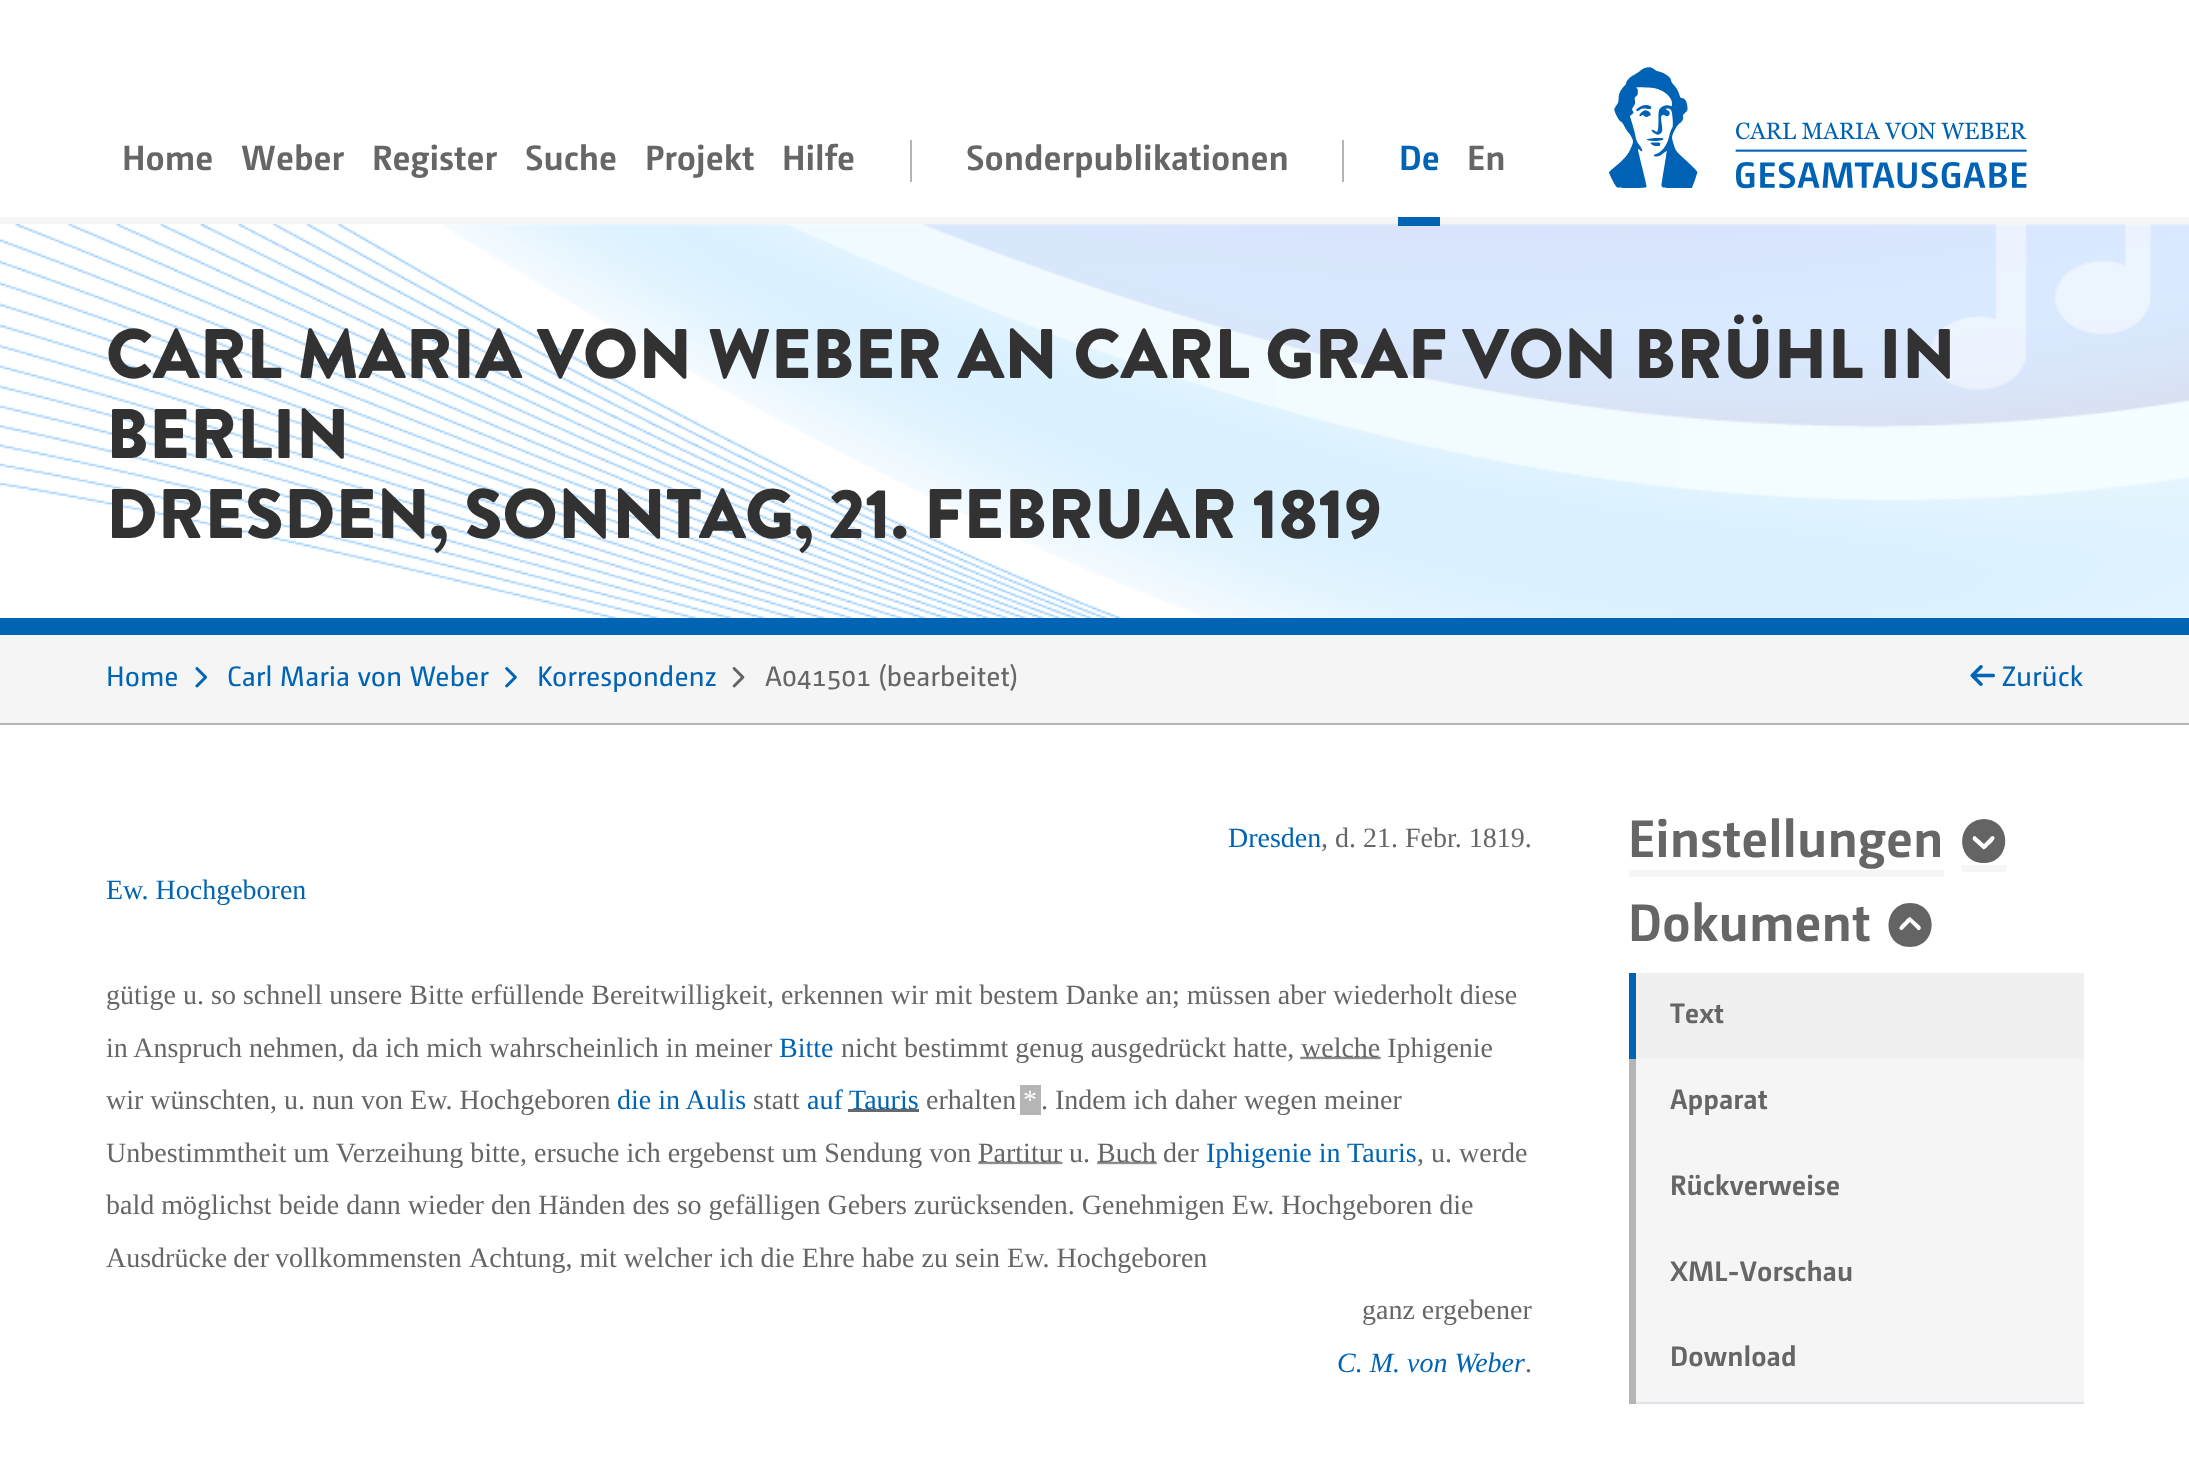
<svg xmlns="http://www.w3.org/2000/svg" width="2189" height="1462">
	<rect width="100%" height="100%" fill="#FFFFFF" />
	<g font-family="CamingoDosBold" font-size="35" font-weight="700" fill="#666666">
		<text x="122" y="170">Home</text>
		<text x="241" y="170">Weber</text>
		<text x="372" y="170">Register</text>
		<text x="525" y="170">Suche</text>
		<text x="645" y="170">Projekt</text>
		<text x="782" y="170">Hilfe</text>
	</g>
	<rect x="910" y="140" width="2" height="42" fill="#B5B5B5" />
	<text x="966" y="170" font-family="CamingoDosBold" font-size="35" font-weight="700" fill="#666666">Sonderpublikationen</text>
	<rect x="1342" y="140" width="2" height="42" fill="#B5B5B5" />
	<text x="1399" y="170" font-family="CamingoDosBold" font-size="35" font-weight="700" fill="#0064B4">De</text>
	<rect x="0" y="217" width="2189" height="7" fill="#F5F5F5" />
	<image x="0" y="224" width="2189" height="394" href="assets/img2.png" />
	<rect x="1398" y="217" width="42" height="9" fill="#0064B4" />
	<text x="1467" y="170" font-family="CamingoDosBold" font-size="35" font-weight="700" fill="#666666">En</text>
	<image x="1609" y="67" width="418" height="122" href="assets/img1.png" />
	<rect x="0" y="618" width="2189" height="17" fill="#0064B4" />
	<g font-family="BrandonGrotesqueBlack" font-size="70" font-weight="900" fill="#323232">
		<text x="106" y="378">CARL MARIA VON WEBER AN CARL GRAF VON BRÜHL IN</text>
		<text x="106" y="458">BERLIN</text>
		<text x="106" y="538">DRESDEN, SONNTAG, 21. FEBRUAR 1819</text>
	</g>
	<rect x="0" y="635" width="2189" height="88" fill="#F5F5F5" />
	<rect x="0" y="723" width="2189" height="2" fill="#B5B5B5" />
	<text x="106" y="686" font-family="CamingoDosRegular" font-size="28" fill="#0064B4">Home</text>
	<image x="195" y="667" width="13" height="21" href="assets/img3.png" />
	<text x="227" y="686" font-family="CamingoDosRegular" font-size="28" fill="#0064B4">Carl Maria von Weber</text>
	<image x="505" y="667" width="12" height="21" href="assets/img4.png" />
	<text x="537" y="686" font-family="CamingoDosRegular" font-size="28" fill="#0064B4">Korrespondenz</text>
	<image x="732" y="667" width="13" height="21" href="assets/img5.png" />
	<text x="765" y="686" font-family="CamingoDosRegular" font-size="28" fill="#666666">A041501 (bearbeitet)</text>
	<image x="1970" y="665" width="25" height="21" href="assets/img6.png" />
	<text x="2002" y="686" font-family="CamingoDosRegular" font-size="28" fill="#0064B4">Zurück</text>
	<text x="1228" y="847" font-family="Liberation Serif" font-size="28" fill="#0064B4">Dresden</text>
	<text x="1321" y="847" font-family="Liberation Serif" font-size="28" fill="#666666">, d. 21. Febr. 1819.</text>
	<text x="106" y="899" font-family="Liberation Serif" font-size="28" fill="#0064B4">Ew. Hochgeboren</text>
	<g font-family="Liberation Serif" font-size="28" fill="#666666">
		<text x="106" y="1004">gütige u. so schnell unsere Bitte erfüllende Bereitwilligkeit, erkennen wir mit bestem Danke an; müssen aber wiederholt diese</text>
		<text x="106" y="1057">in Anspruch nehmen, da ich mich wahrscheinlich in meiner</text>
	</g>
	<text x="779" y="1057" font-family="Liberation Serif" font-size="28" fill="#0064B4">Bitte</text>
	<text x="841" y="1057" font-family="Liberation Serif" font-size="28" fill="#666666">nicht bestimmt genug ausgedrückt hatte,</text>
	<image x="1300" y="1056" width="81" height="4" href="assets/img7.png" />
	<g font-family="Liberation Serif" font-size="28" fill="#666666">
		<text x="1301" y="1057">welche Iphigenie</text>
		<text x="106" y="1109">wir wünschten, u. nun von Ew. Hochgeboren</text>
	</g>
	<text x="617" y="1109" font-family="Liberation Serif" font-size="28" fill="#0064B4">die in Aulis</text>
	<text x="753" y="1109" font-family="Liberation Serif" font-size="28" fill="#666666">statt</text>
	<text x="807" y="1109" font-family="Liberation Serif" font-size="28" fill="#0064B4">auf</text>
	<rect x="848" y="1109" width="71" height="3" fill="#686868" />
	<text x="849" y="1109" font-family="Liberation Serif" font-size="28" fill="#0064B4">Tauris</text>
	<text x="926" y="1109" font-family="Liberation Serif" font-size="28" fill="#666666">erhalten</text>
	<rect x="1020" y="1085" width="21" height="30" fill="#B5B5B5" />
	<text x="1023" y="1109" font-family="Liberation Serif" font-size="28" fill="#FFFFFF">*</text>
	<g font-family="Liberation Serif" font-size="28" fill="#666666">
		<text x="1041" y="1109">. Indem ich daher wegen meiner</text>
		<text x="106" y="1162">Unbestimmtheit um Verzeihung bitte, ersuche ich ergebenst um Sendung von</text>
	</g>
	<image x="978" y="1161" width="85" height="4" href="assets/img8.png" />
	<text x="978" y="1162" font-family="Liberation Serif" font-size="28" fill="#666666">Partitur u.</text>
	<image x="1097" y="1161" width="60" height="4" href="assets/img9.png" />
	<text x="1097" y="1162" font-family="Liberation Serif" font-size="28" fill="#666666">Buch der</text>
	<text x="1206" y="1162" font-family="Liberation Serif" font-size="28" fill="#0064B4">Iphigenie in Tauris</text>
	<g font-family="Liberation Serif" font-size="28" fill="#666666">
		<text x="1417" y="1162">, u. werde</text>
		<text x="106" y="1214">bald möglichst beide dann wieder den Händen des so gefälligen Gebers zurücksenden. Genehmigen Ew. Hochgeboren die</text>
		<text x="106" y="1267" word-spacing="-1">Ausdrücke der vollkommensten</text>
		<text x="469" y="1267">Achtung, mit welcher ich die Ehre habe zu sein Ew. Hochgeboren</text>
		<text x="1362" y="1319">ganz ergebener</text>
	</g>
	<text x="1337" y="1372" font-family="Liberation Serif" font-size="28" font-style="italic" fill="#0064B4">C. M. von Weber</text>
	<text x="1525" y="1372" font-family="Liberation Serif" font-size="28" fill="#666666">.</text>
	<text x="1628" y="857" font-family="CamingoDosBold" font-size="52.5" font-weight="700" fill="#666666">Einstellungen</text>
	<rect x="1629" y="870" width="315" height="7" fill="#F5F5F5" />
	<rect x="1962" y="865" width="44" height="7" fill="#F5F5F5" />
	<path d="M1984 819C1955 820 1955 863 1984 863C2012 863 2013 820 1984 819ZM1973 840C1972 838 1973 836 1975 836L1984 844L1989 839C1990 838 1991 836 1993 836C1998 838 1989 845 1988 846C1987 847 1985 850 1983 849Z" fill="#646464" />
	<text x="1628" y="941" font-family="CamingoDosBold" font-size="52.5" font-weight="700" fill="#666666">Dokument</text>
	<path d="M1910 947C1939 947 1939 903 1910 903C1882 903 1881 947 1910 947ZM1920 926C1922 928 1920 931 1918 930L1910 922L1905 927C1904 928 1902 931 1901 930C1896 928 1905 922 1906 920C1907 919 1909 917 1910 917Z" fill="#646464" />
	<rect x="1629" y="1402" width="455" height="2" fill="#DEE2E6" />
	<rect x="1636" y="973" width="448" height="86" fill="#F0F0F0" />
	<rect x="1629" y="973" width="7" height="88" fill="#0064B4" />
	<text x="1670" y="1023" font-family="CamingoDosBold" font-size="28" font-weight="700" fill="#666666">Text</text>
	<rect x="1636" y="1059" width="448" height="343" fill="#F5F5F5" />
	<rect x="1629" y="1059" width="7" height="345" fill="#B5B5B5" />
	<g font-family="CamingoDosBold" font-size="28" font-weight="700" fill="#666666">
		<text x="1670" y="1109">Apparat</text>
		<text x="1670" y="1195">Rückverweise</text>
		<text x="1670" y="1281">XML-Vorschau</text>
		<text x="1670" y="1366">Download</text>
	</g>
</svg>
